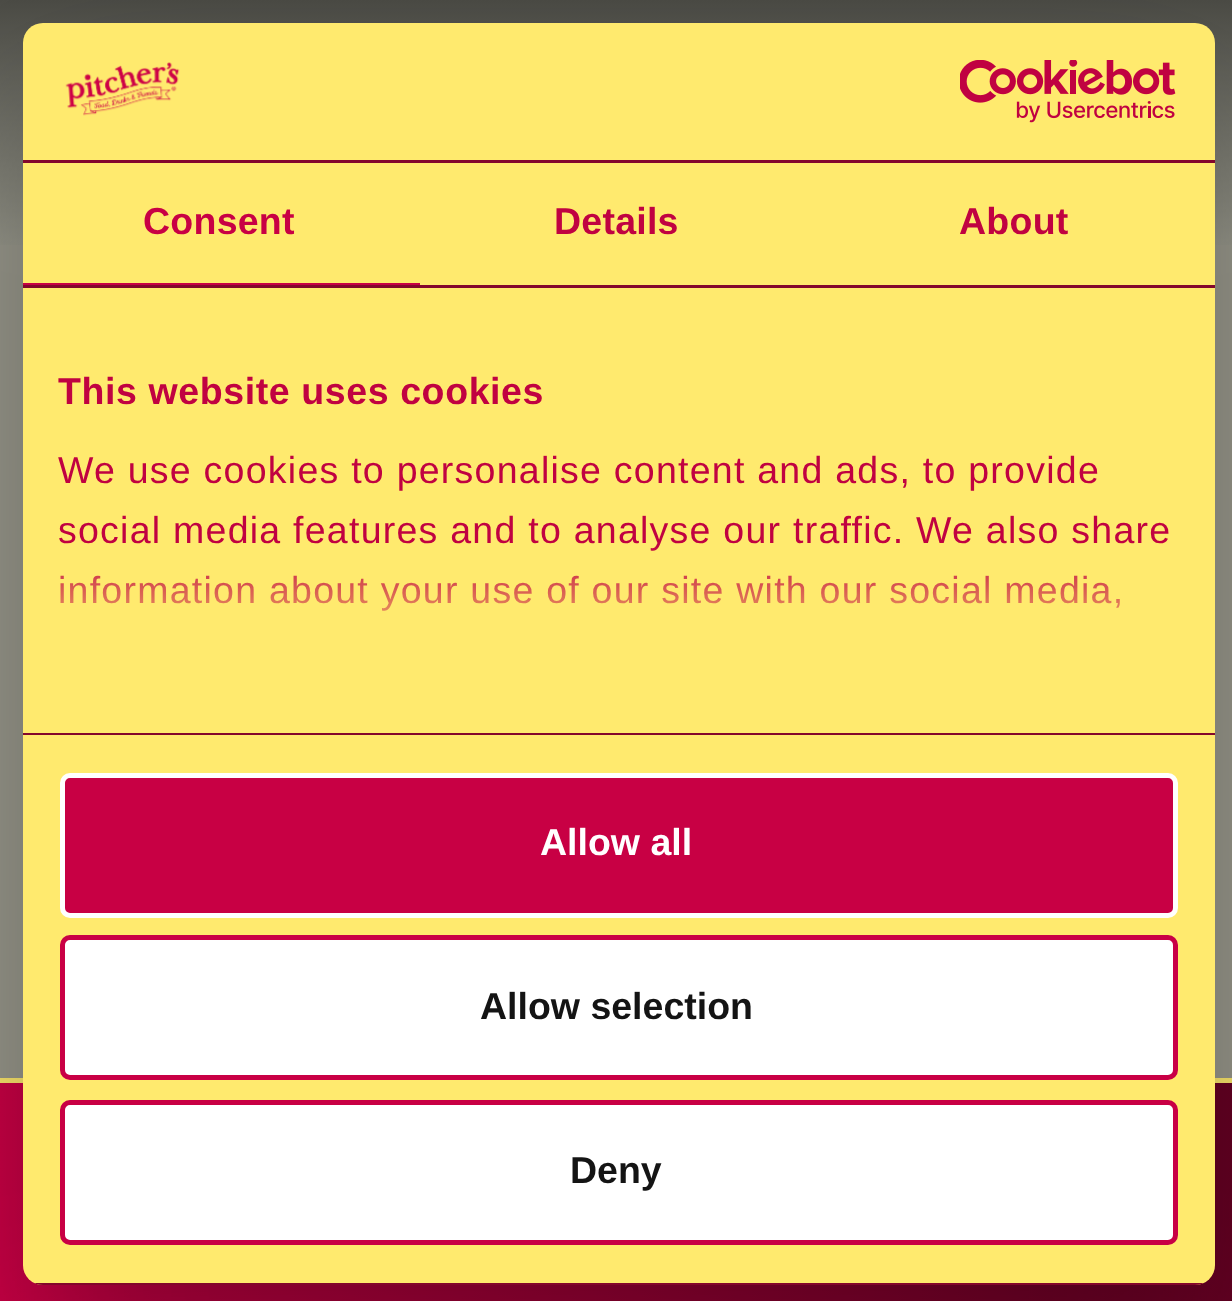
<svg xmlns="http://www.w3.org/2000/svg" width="1232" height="1301">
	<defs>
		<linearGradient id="g1" gradientUnits="userSpaceOnUse" x1="616" y1="0" x2="616" y2="250"><stop offset="0" stop-color="#4C4C46" /><stop offset="1" stop-color="#98988C" /></linearGradient>
		<linearGradient id="g2" gradientUnits="userSpaceOnUse" x1="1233" y1="1192" x2="0" y2="1193"><stop offset="0" stop-color="#660023" /><stop offset="1" stop-color="#CC0046" /></linearGradient>
		<clipPath id="clip1"><path d="M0 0H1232V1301H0ZM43 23H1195C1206 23 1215 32 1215 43V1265C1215 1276 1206 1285 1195 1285H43C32 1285 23 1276 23 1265V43C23 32 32 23 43 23Z" clip-rule="evenodd" /></clipPath>
		<linearGradient id="g3" gradientUnits="userSpaceOnUse" x1="601" y1="731" x2="601" y2="544"><stop offset="0" stop-color="#FFEA6E" /><stop offset="0.5" stop-color="#FFEA6E" stop-opacity="0.8" /><stop offset="1" stop-color="#FFEA6E" stop-opacity="0" /></linearGradient>
		<clipPath id="clip2"><rect x="23" y="23" width="1192" height="1262" rx="20" /></clipPath>
	</defs>
	<rect width="100%" height="100%" fill="#99988C" />
	<rect x="0" y="0" width="1232" height="245" fill="url(#g1)" />
	<rect x="0" y="1078" width="1232" height="5" fill="#FFEA6E" />
	<rect x="0" y="1083" width="1232" height="218" fill="url(#g2)" />
	<g clip-path="url(#clip1)">
		<rect x="23" y="103" width="1192" height="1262" rx="20" fill="#000000" fill-opacity="0.3" filter="blur(85px)" />
	</g>
	<rect x="23" y="23" width="1192" height="1262" rx="20" fill="#FFEA6E" />
	<rect x="23" y="160" width="1192" height="3" fill="#83072C" />
	<image x="65" y="62" width="115" height="54" href="assets/img1.png" />
	<image x="960" y="60" width="216" height="63" href="assets/img2.png" />
	<rect x="23" y="285" width="1192" height="3" fill="#83072C" />
	<rect x="23" y="283" width="397" height="2" fill="#C80044" />
	<text x="143" y="234" font-family="Liberation Sans" font-size="37.5" font-weight="700" letter-spacing="0.25" fill="#C80044">Consent</text>
	<g font-family="Liberation Sans" font-size="37.5" font-weight="700" letter-spacing="0.25" fill="#C00241">
		<text x="554" y="234">Details</text>
		<text x="959" y="234">About</text>
	</g>
	<rect x="23" y="733" width="1192" height="2" fill="#83072C" />
	<text x="58" y="404" font-family="Liberation Sans" font-size="37.5" font-weight="700" letter-spacing="0.6" fill="#C00241">This website uses cookies</text>
	<g font-family="Liberation Sans" font-size="37.5" letter-spacing="1.25" fill="#C00241">
		<text x="58" y="483">We use cookies to personalise content and ads, to provide</text>
		<text x="58" y="543">social media features and to analyse our traffic. We also share</text>
		<text x="58" y="603">information about your use of our site with our social media,</text>
	</g>
	<rect x="60" y="547" width="1060" height="64" fill="url(#g3)" />
	<g clip-path="url(#clip2)">
		<rect x="34" y="1283" width="1170" height="2" fill="#83072C" />
	</g>
	<rect x="62.5" y="775.5" width="1113" height="140" rx="7.5" fill="#C80044" stroke="#FFFFFF" stroke-width="5" />
	<text x="540" y="855" font-family="Liberation Sans" font-size="37.5" font-weight="700" fill="#FFFFFF">Allow all</text>
	<rect x="62.5" y="937.5" width="1113" height="140" rx="7.5" fill="#FFFFFF" stroke="#C90045" stroke-width="5" />
	<text x="480" y="1019" font-family="Liberation Sans" font-size="37.5" font-weight="700" fill="#141414">Allow selection</text>
	<rect x="62.5" y="1102.5" width="1113" height="140" rx="7.5" fill="#FFFFFF" stroke="#C80044" stroke-width="5" />
	<text x="570" y="1183" font-family="Liberation Sans" font-size="37.5" font-weight="700" fill="#141414">Deny</text>
</svg>
